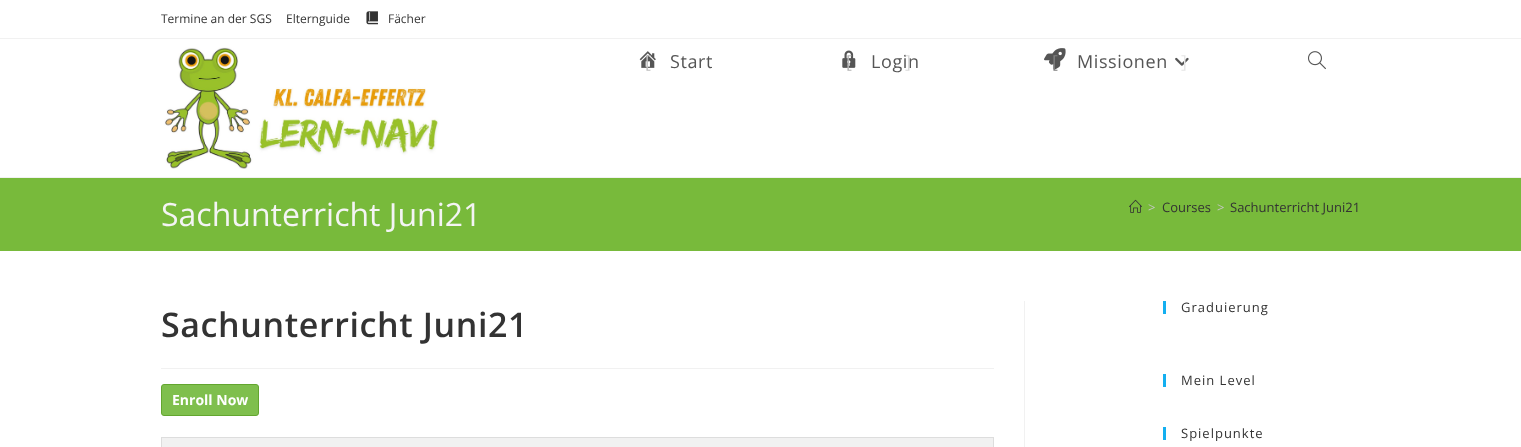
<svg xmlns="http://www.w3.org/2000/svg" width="1521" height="447">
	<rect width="100%" height="100%" fill="#FFFFFF" />
	<rect x="0" y="38" width="1521" height="1" fill="#F1F1F1" />
	<g font-family="Open Sans" font-size="12" fill="#333333">
		<text x="161" y="23">Termine an der SGS</text>
		<text x="286" y="23">Elternguide</text>
	</g>
	<image x="366" y="11" width="12" height="14" href="assets/img1.png" />
	<text x="388" y="23" font-family="Open Sans" font-size="12" fill="#333333">Fächer</text>
	<rect x="0" y="177" width="1521" height="1" fill="#F1F1F1" />
	<image x="164" y="47" width="275" height="122" href="assets/img2.png" />
	<image x="639" y="51" width="17" height="17" href="assets/img3.png" />
	<text x="670" y="68" font-family="Open Sans" font-size="18" letter-spacing="0.6" fill="#555555">Start</text>
	<text x="645" y="68" font-family="Open Sans" font-size="18" letter-spacing="0.6" fill="#BFBFBF">[</text>
	<image x="842" y="50" width="14" height="18" href="assets/img4.png" />
	<text x="871" y="68" font-family="Open Sans" font-size="18" letter-spacing="0.6" fill="#555555">Login</text>
	<text x="846" y="68" font-family="Open Sans" font-size="18" letter-spacing="0.6" fill="#B5B5B5">[</text>
	<text x="905" y="68" font-family="Open Sans" font-size="18" letter-spacing="0.6" fill="#DADADA">]</text>
	<image x="1044" y="48" width="22" height="22" href="assets/img5.png" />
	<text x="1077" y="68" font-family="Open Sans" font-size="18" letter-spacing="0.6" fill="#555555">Missionen</text>
	<image x="1175" y="57" width="14" height="9" href="assets/img6.png" />
	<text x="1052" y="68" font-family="Open Sans" font-size="18" letter-spacing="0.6" fill="#808080">[</text>
	<text x="1181" y="68" font-family="Open Sans" font-size="18" letter-spacing="0.6" fill="#E6E6E6">]</text>
	<image x="1308" y="51" width="18" height="19" href="assets/img7.png" />
	<rect x="0" y="178" width="1521" height="73" fill="#78BA3B" />
	<text x="161" y="226" font-family="Open Sans" font-size="32" fill="#F4F4F4">Sachunterricht Juni21</text>
	<image x="1129" y="199" width="13" height="14" href="assets/img8.png" />
	<text x="1148" y="212" font-family="Open Sans" font-size="13" fill="#C6C6C6">&gt;</text>
	<text x="1162" y="212" font-family="Open Sans" font-size="13" fill="#333333">Courses</text>
	<text x="1217" y="212" font-family="Open Sans" font-size="13" fill="#C6C6C6">&gt;</text>
	<text x="1230" y="212" font-family="Open Sans" font-size="13" fill="#333333">Sachunterricht Juni21</text>
	<rect x="1024" y="301" width="1" height="146" fill="#F1F1F1" />
	<rect x="161" y="368" width="833" height="1" fill="#F1F1F1" />
	<text x="161" y="337" font-family="Open Sans" font-size="34" font-weight="600" letter-spacing="0.6" fill="#333333">Sachunterricht Juni21</text>
	<rect x="161.5" y="384.5" width="97" height="31" rx="2.5" fill="#7FBF4D" stroke="#63A62F" />
	<text x="172" y="405" font-family="Open Sans" font-size="14" font-weight="700" fill="#FFFFFF">Enroll Now</text>
	<rect x="161" y="437" width="833" height="1" fill="#DDDDDD" />
	<rect x="993" y="437" width="1" height="10" fill="#DDDDDD" />
	<rect x="161" y="437" width="1" height="10" fill="#DDDDDD" />
	<rect x="162" y="438" width="831" height="9" fill="#F1F1F1" />
	<rect x="1163" y="301" width="3" height="13" fill="#13AFF0" />
	<text x="1181" y="312" font-family="Open Sans" font-size="13" letter-spacing="1" fill="#333333">Graduierung</text>
	<rect x="1163" y="374" width="3" height="13" fill="#13AFF0" />
	<text x="1181" y="385" font-family="Open Sans" font-size="13" letter-spacing="1" fill="#333333">Mein Level</text>
	<rect x="1163" y="427" width="3" height="13" fill="#13AFF0" />
	<text x="1181" y="438" font-family="Open Sans" font-size="13" letter-spacing="1" fill="#333333">Spielpunkte</text>
</svg>
